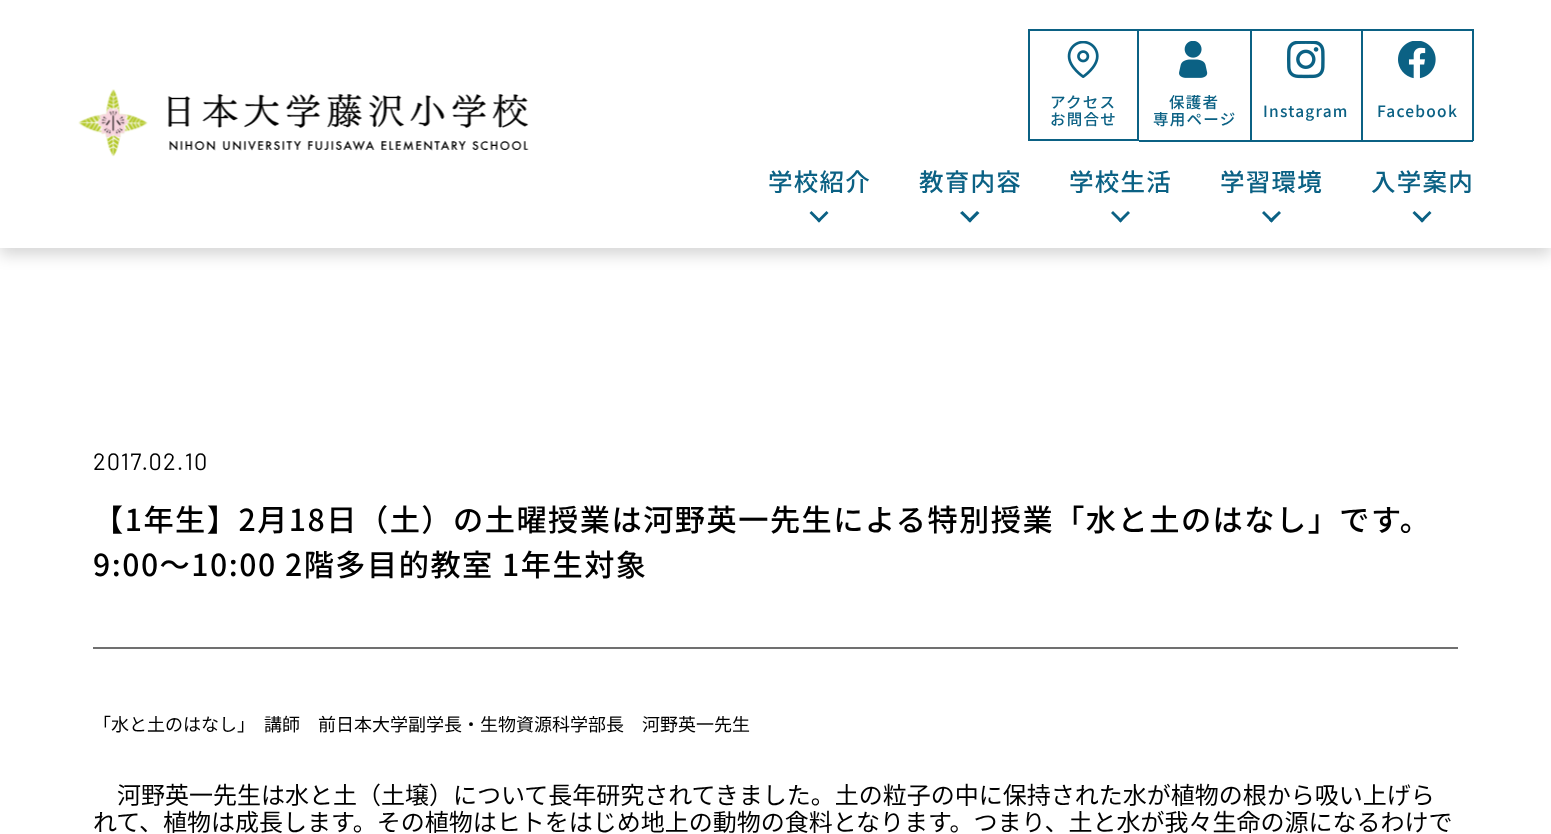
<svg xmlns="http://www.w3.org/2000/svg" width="1551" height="834">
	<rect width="100%" height="100%" fill="#FFFFFF" />
	<rect x="0" y="8" width="1551" height="247" fill="#000000" fill-opacity="0.16" filter="blur(7.5px)" />
	<rect x="0" y="0" width="1551" height="248" fill="#FFFFFF" />
	<image x="78" y="89" width="451" height="68" href="assets/img1.png" />
	<rect x="1029" y="30" width="109" height="110" fill="none" stroke="#0B6184" stroke-width="2" />
	<image x="1067" y="41" width="32" height="37" href="assets/img2.png" />
	<g font-family="Noto Sans JP" font-size="15.5" font-weight="500" letter-spacing="1.25" fill="#0B6184">
		<text x="1050" y="108">アクセス</text>
		<text x="1050" y="125">お問合せ</text>
	</g>
	<rect x="1139" y="29" width="112" height="2" fill="#0B6184" />
	<rect x="1250" y="29" width="2" height="112" fill="#0B6184" />
	<rect x="1139" y="140" width="112" height="2" fill="#0B6184" />
	<image x="1179" y="41" width="29" height="37" href="assets/img3.png" />
	<g font-family="Noto Sans JP" font-size="15.5" font-weight="500" letter-spacing="1.25" fill="#0B6184">
		<text x="1169" y="108">保護者</text>
		<text x="1153" y="125">専用ページ</text>
	</g>
	<rect x="1251" y="29" width="111" height="2" fill="#0B6184" />
	<rect x="1361" y="29" width="2" height="112" fill="#0B6184" />
	<rect x="1251" y="140" width="111" height="2" fill="#0B6184" />
	<image x="1287" y="41" width="38" height="38" href="assets/img4.png" />
	<text x="1263" y="117" font-family="Noto Sans JP" font-size="15.5" font-weight="500" letter-spacing="1.25" fill="#0B6184">Instagram</text>
	<rect x="1362" y="29" width="111" height="2" fill="#0B6184" />
	<rect x="1472" y="29" width="2" height="112" fill="#0B6184" />
	<rect x="1362" y="140" width="111" height="2" fill="#0B6184" />
	<image x="1398" y="41" width="38" height="38" href="assets/img5.png" />
	<text x="1377" y="117" font-family="Noto Sans JP" font-size="15.5" font-weight="500" letter-spacing="1.25" fill="#0B6184">Facebook</text>
	<text x="768" y="191" font-family="Noto Sans JP" font-size="24.5" font-weight="500" letter-spacing="1.25" fill="#0B6184">学校紹介</text>
	<path d="M826.5 211L828.5 213L819 222.5L817 220.5Z" fill="#0B6184" />
	<path d="M811.5 211L821 220.5L819 222.5L809.5 213Z" fill="#0B6184" />
	<text x="919" y="191" font-family="Noto Sans JP" font-size="24.5" font-weight="500" letter-spacing="1.25" fill="#0B6184">教育内容</text>
	<path d="M977 211L979.5 213L970 222.5L967.5 220.5Z" fill="#0B6184" />
	<path d="M962.5 211L972 220.5L970 222.5L960 213Z" fill="#0B6184" />
	<text x="1069" y="191" font-family="Noto Sans JP" font-size="24.5" font-weight="500" letter-spacing="1.25" fill="#0B6184">学校生活</text>
	<path d="M1128 211L1130 213L1120.5 222.5L1118.5 220.5Z" fill="#0B6184" />
	<path d="M1113 211L1122.5 220.5L1120.5 222.5L1111 213Z" fill="#0B6184" />
	<text x="1220" y="191" font-family="Noto Sans JP" font-size="24.5" font-weight="500" letter-spacing="1.25" fill="#0B6184">学習環境</text>
	<path d="M1279 211L1281 213L1271.5 222.5L1269 220.5Z" fill="#0B6184" />
	<path d="M1264 211L1273.5 220.5L1271.5 222.5L1262 213Z" fill="#0B6184" />
	<text x="1371" y="191" font-family="Noto Sans JP" font-size="24.5" font-weight="500" letter-spacing="1.25" fill="#0B6184">入学案内</text>
	<path d="M1429.5 211L1431.5 213L1422 222.5L1420 220.5Z" fill="#0B6184" />
	<path d="M1414.5 211L1424.5 220.5L1422 222.5L1412.5 213Z" fill="#0B6184" />
	<rect x="93" y="647" width="1365" height="2" fill="#707070" />
	<text x="93" y="470" font-family="Barlow" font-size="23.5" letter-spacing="1.25" fill="#000000">2017.02.10</text>
	<g font-family="Noto Sans JP" font-size="30.2" font-weight="500" letter-spacing="1.5" fill="#000000">
		<text x="93" y="531">【1年生】2月18日（土）の土曜授業は河野英一先生による特別授業「水と土のはなし」です。</text>
		<text x="93" y="576">9:00～10:00 2階多目的教室 1年生対象</text>
	</g>
	<text x="93" y="731" font-family="Noto Sans JP" font-size="18" fill="#000000">「水と土のはなし」　講師　前日本大学副学長・生物資源科学部長　河野英一先生</text>
	<g font-family="Noto Sans JP" font-size="24" fill="#000000">
		<text x="117" y="804">河野英一先生は水と土（土壌）について長年研究されてきました。土の粒子の中に保持された水が植物の根から吸い上げら</text>
		<text x="93" y="831">れて、植物は成長します。その植物はヒトをはじめ地上の動物の食料となります。つまり、土と水が我々生命の源になるわけで</text>
	</g>
</svg>
